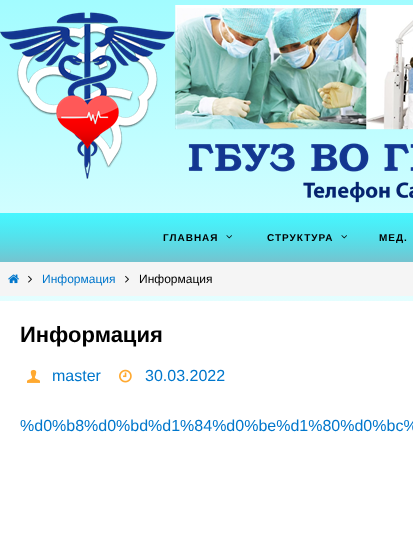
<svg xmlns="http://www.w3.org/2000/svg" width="413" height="540">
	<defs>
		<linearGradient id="g1" gradientUnits="userSpaceOnUse" x1="0" y1="0" x2="0" y2="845"><stop offset="0" stop-color="#A2FCFF" /><stop offset="0.5" stop-color="#FFFFFF" /><stop offset="0.51" stop-color="#0264B1" /><stop offset="1" stop-color="#87E4EB" /></linearGradient>
		<linearGradient id="g2" gradientUnits="userSpaceOnUse" x1="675" y1="213" x2="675" y2="262"><stop offset="0" stop-color="#00F3FF" stop-opacity="0.66" /><stop offset="1" stop-color="#75C3CF" /></linearGradient>
	</defs>
	<rect width="100%" height="100%" fill="#FFFFFF" />
	<rect x="0" y="0" width="413" height="301" fill="url(#g1)" />
	<image x="0" y="5" width="413" height="198" href="assets/img1.png" />
	<rect x="0" y="213" width="413" height="49" fill="url(#g2)" />
	<text x="163" y="241" font-family="Liberation Sans" font-size="10" font-weight="700" letter-spacing="1" fill="#000000">ГЛАВНАЯ</text>
	<image x="226" y="235" width="6" height="4" href="assets/img2.png" />
	<text x="267" y="241" font-family="Liberation Sans" font-size="10" font-weight="700" letter-spacing="1" fill="#000000">СТРУКТУРА</text>
	<image x="341" y="235" width="6" height="4" href="assets/img2.png" />
	<text x="379" y="241" font-family="Liberation Sans" font-size="10" font-weight="700" letter-spacing="1" fill="#000000">МЕД.</text>
	<rect x="0" y="262" width="413" height="34" fill="#F5F5F5" />
	<image x="8" y="274" width="11" height="10" href="assets/img3.png" />
	<image x="28" y="275" width="4" height="8" href="assets/img4.png" />
	<text x="42" y="283" font-family="Liberation Sans" font-size="12" fill="#0077CC">Информация</text>
	<image x="125" y="275" width="4" height="8" href="assets/img4.png" />
	<text x="139" y="283" font-family="Liberation Sans" font-size="12" fill="#000000">Информация</text>
	<text x="20" y="342" font-family="Liberation Sans" font-size="22" font-weight="700" fill="#000000">Информация</text>
	<image x="27" y="369" width="13" height="14" href="assets/img5.png" />
	<text x="52" y="381" font-family="Liberation Sans" font-size="16" fill="#0077CC">master</text>
	<image x="119" y="369" width="13" height="14" href="assets/img6.png" />
	<g font-family="Liberation Sans" font-size="16" fill="#0077CC">
		<text x="145" y="381">30.03.2022</text>
		<text x="20" y="431">%d0%b8%d0%bd%d1%84%d0%be%d1%80%d0%bc%</text>
	</g>
</svg>
